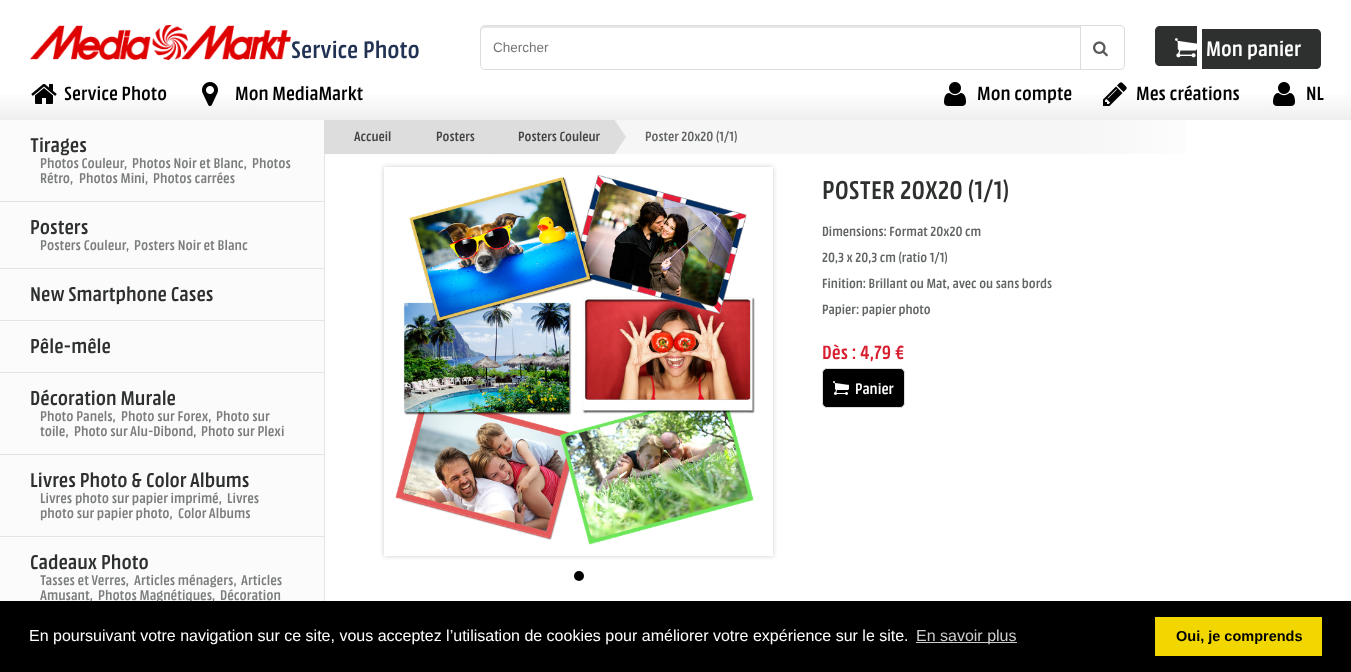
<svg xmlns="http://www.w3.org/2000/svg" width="1351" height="672">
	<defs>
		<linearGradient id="g1" gradientUnits="userSpaceOnUse" x1="676" y1="0" x2="676" y2="120"><stop offset="0.75" stop-color="#FFFFFF" /><stop offset="1" stop-color="#EFEFEF" /></linearGradient>
		<linearGradient id="g2" gradientUnits="userSpaceOnUse" x1="324" y1="137" x2="1229" y2="137"><stop offset="0" stop-color="#F6F6F6" /><stop offset="0.83" stop-color="#F6F6F6" /><stop offset="1" stop-color="#FFFFFF" /></linearGradient>
		<clipPath id="clip1"><rect x="324" y="120" width="905" height="34" /></clipPath>
		<clipPath id="clip2"><path d="M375 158H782V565H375ZM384 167H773V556H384Z" clip-rule="evenodd" /></clipPath>
	</defs>
	<rect width="100%" height="100%" fill="#FFFFFF" />
	<rect x="0" y="95" width="1351" height="25" fill="url(#g1)" />
	<image x="30" y="25" width="261" height="35" href="assets/img1.png" />
	<text x="291" y="58" font-family="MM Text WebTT" font-size="25" fill="#213254">Service Photo</text>
	<path d="M485 28H1120C1122 28 1124 30 1124 32C1124 29 1124 26 1120 26H483L482 28C481 29 481 31 481 32C481 30 483 28 485 28Z" fill="#E6E6E6" />
	<rect x="480.5" y="25.5" width="644" height="44" rx="4.5" fill="none" stroke="#DDDDDD" />
	<path d="M1080.5 25.5H1120C1122.5 25.5 1124.5 27.5 1124.5 30V65C1124.5 67.5 1122.5 69.5 1120 69.5H1080.5Z" fill="#FFFFFF" stroke="#DDDDDD" />
	<text x="493" y="52" font-family="Liberation Sans" font-size="13.5" fill="#757575">Chercher</text>
	<image x="1093" y="41" width="15" height="16" href="assets/img2.png" />
	<path d="M1160 26H1197V66H1160C1157 66 1155 64 1155 61V31C1155 28 1157 26 1160 26Z" fill="#2E3030" />
	<image x="1175" y="38" width="22" height="20" href="assets/img3.png" />
	<path d="M1206 29H1316C1319 29 1321 31 1321 34V64C1321 67 1319 69 1316 69H1206Z" fill="#2E3030" />
	<text x="1206" y="56" font-family="MM Text WebTT" font-size="22" fill="#FFFFFF">Mon panier</text>
	<rect x="1202" y="29" width="4" height="40" fill="#2E3030" />
	<image x="31" y="84" width="26" height="20" href="assets/img4.png" />
	<text x="64" y="100" font-family="MM Text WebTT" font-size="20" fill="#000000">Service Photo</text>
	<image x="202" y="82" width="16" height="24" href="assets/img5.png" />
	<text x="235" y="100" font-family="MM Text WebTT" font-size="20" fill="#000000">Mon MediaMarkt</text>
	<image x="944" y="82" width="22" height="24" href="assets/img6.png" />
	<text x="977" y="100" font-family="MM Text WebTT" font-size="20" fill="#000000">Mon compte</text>
	<image x="1103" y="82" width="24" height="24" href="assets/img7.png" />
	<text x="1136" y="100" font-family="MM Text WebTT" font-size="20" fill="#000000">Mes créations</text>
	<image x="1273" y="82" width="22" height="24" href="assets/img6.png" />
	<text x="1306" y="100" font-family="MM Text WebTT" font-size="20" fill="#000000">NL</text>
	<rect x="0" y="120" width="324" height="481" fill="#FBFBFB" />
	<rect x="324" y="154" width="1" height="447" fill="#E5E4E4" />
	<rect x="0" y="201" width="324" height="1" fill="#E4E4E4" />
	<text x="30" y="152" font-family="MM Text WebTT" font-size="21" fill="#2E3030">Tirages</text>
	<g font-family="MM Text WebTT" font-size="14.75" fill="#7C7E7E">
		<text x="40" y="168">Photos Couleur,</text>
		<text x="132" y="168">Photos Noir et Blanc,</text>
		<text x="252" y="168">Photos</text>
		<text x="40" y="183">Rétro,</text>
		<text x="79" y="183">Photos Mini,</text>
		<text x="153" y="183">Photos carrées</text>
	</g>
	<rect x="0" y="268" width="324" height="1" fill="#E4E4E4" />
	<text x="30" y="234" font-family="MM Text WebTT" font-size="21" fill="#2E3030">Posters</text>
	<g font-family="MM Text WebTT" font-size="14.75" fill="#7C7E7E">
		<text x="40" y="250">Posters Couleur,</text>
		<text x="134" y="250">Posters Noir et Blanc</text>
	</g>
	<rect x="0" y="320" width="324" height="1" fill="#E4E4E4" />
	<text x="30" y="301" font-family="MM Text WebTT" font-size="21" fill="#2E3030">New Smartphone Cases</text>
	<rect x="0" y="372" width="324" height="1" fill="#E4E4E4" />
	<text x="30" y="353" font-family="MM Text WebTT" font-size="21" fill="#2E3030">Pêle-mêle</text>
	<rect x="0" y="454" width="324" height="1" fill="#E4E4E4" />
	<text x="30" y="405" font-family="MM Text WebTT" font-size="21" fill="#2E3030">Décoration Murale</text>
	<g font-family="MM Text WebTT" font-size="14.75" fill="#7C7E7E">
		<text x="40" y="421">Photo Panels,</text>
		<text x="121" y="421">Photo sur Forex,</text>
		<text x="216" y="421">Photo sur</text>
		<text x="40" y="436">toile,</text>
		<text x="74" y="436">Photo sur Alu-Dibond,</text>
		<text x="201" y="436">Photo sur Plexi</text>
	</g>
	<rect x="0" y="536" width="324" height="1" fill="#E4E4E4" />
	<text x="30" y="487" font-family="MM Text WebTT" font-size="21" fill="#2E3030">Livres Photo &amp; Color Albums</text>
	<g font-family="MM Text WebTT" font-size="14.75" fill="#7C7E7E">
		<text x="40" y="503">Livres photo sur papier imprimé,</text>
		<text x="227" y="503">Livres</text>
		<text x="40" y="518">photo sur papier photo,</text>
		<text x="178" y="518">Color Albums</text>
	</g>
	<text x="30" y="569" font-family="MM Text WebTT" font-size="21" fill="#2E3030">Cadeaux Photo</text>
	<g font-family="MM Text WebTT" font-size="14.75" fill="#7C7E7E">
		<text x="40" y="585">Tasses et Verres,</text>
		<text x="134" y="585">Articles ménagers,</text>
		<text x="241" y="585">Articles</text>
		<text x="40" y="600">Amusant,</text>
		<text x="98" y="600">Photos Magnétiques,</text>
		<text x="220" y="600">Décoration</text>
	</g>
	<rect x="615" y="120" width="571" height="34" fill="url(#g2)" />
	<rect x="324" y="120" width="162" height="34" fill="#DDDDDD" />
	<g font-family="MM Text WebTT" font-size="14" fill="#444444">
		<text x="354" y="141">Accueil</text>
		<text x="436" y="141">Posters</text>
	</g>
	<rect x="488" y="120" width="127" height="34" fill="#DDDDDD" />
	<g clip-path="url(#clip1)">
		<path d="M486 158V116L500 137Z" fill="#DDDDDD" />
	</g>
	<text x="518" y="141" font-family="MM Text WebTT" font-size="14" fill="#444444">Posters Couleur</text>
	<g clip-path="url(#clip1)">
		<path d="M612 158V116L626 137Z" fill="#DDDDDD" />
	</g>
	<text x="645" y="141" font-family="MM Text WebTT" font-size="14" fill="#626565">Poster 20x20 (1/1)</text>
	<g clip-path="url(#clip2)">
		<rect x="384" y="167" width="389" height="389" fill="#CCCCCC" filter="blur(2.5px)" />
	</g>
	<image x="395" y="174" width="360" height="371" href="assets/img8.png" />
	<circle cx="579" cy="576" r="5" fill="#000000" />
	<text x="822" y="199" font-family="MM Text WebTT" font-size="27" fill="#2E3030">POSTER 20X20 (1/1)</text>
	<g font-family="MM Text WebTT" font-size="14" fill="#626565">
		<text x="822" y="236">Dimensions: Format 20x20 cm</text>
		<text x="822" y="262">20,3 x 20,3 cm (ratio 1/1)</text>
		<text x="822" y="288">Finition: Brillant ou Mat, avec ou sans bords</text>
		<text x="822" y="314">Papier: papier photo</text>
	</g>
	<text x="822" y="359" font-family="MM Text WebTT" font-size="20" fill="#D71F30">Dès : 4,79 €</text>
	<rect x="822.5" y="368.5" width="82" height="39" rx="4.5" fill="#000000" stroke="#DDDDDD" />
	<image x="833" y="381" width="16" height="14" href="assets/img9.png" />
	<text x="855" y="394" font-family="MM Text WebTT" font-size="16" fill="#FFFFFF">Panier</text>
	<rect x="0" y="601" width="1351" height="71" fill="#000000" />
	<text x="29" y="641" font-family="Liberation Sans" font-size="16" fill="#FFFFFF">En poursuivant votre navigation sur ce site, vous acceptez l’utilisation de cookies pour améliorer votre expérience sur le site.</text>
	<rect x="916" y="642" width="101" height="1" fill="#CCCCCC" />
	<text x="916" y="641" font-family="Liberation Sans" font-size="16" fill="#CCCCCC">En savoir plus</text>
	<rect x="1155" y="617" width="167" height="39" fill="#F1D600" />
	<text x="1176" y="641" font-family="Liberation Sans" font-size="14.5" font-weight="700" fill="#000000">Oui, je comprends</text>
</svg>
